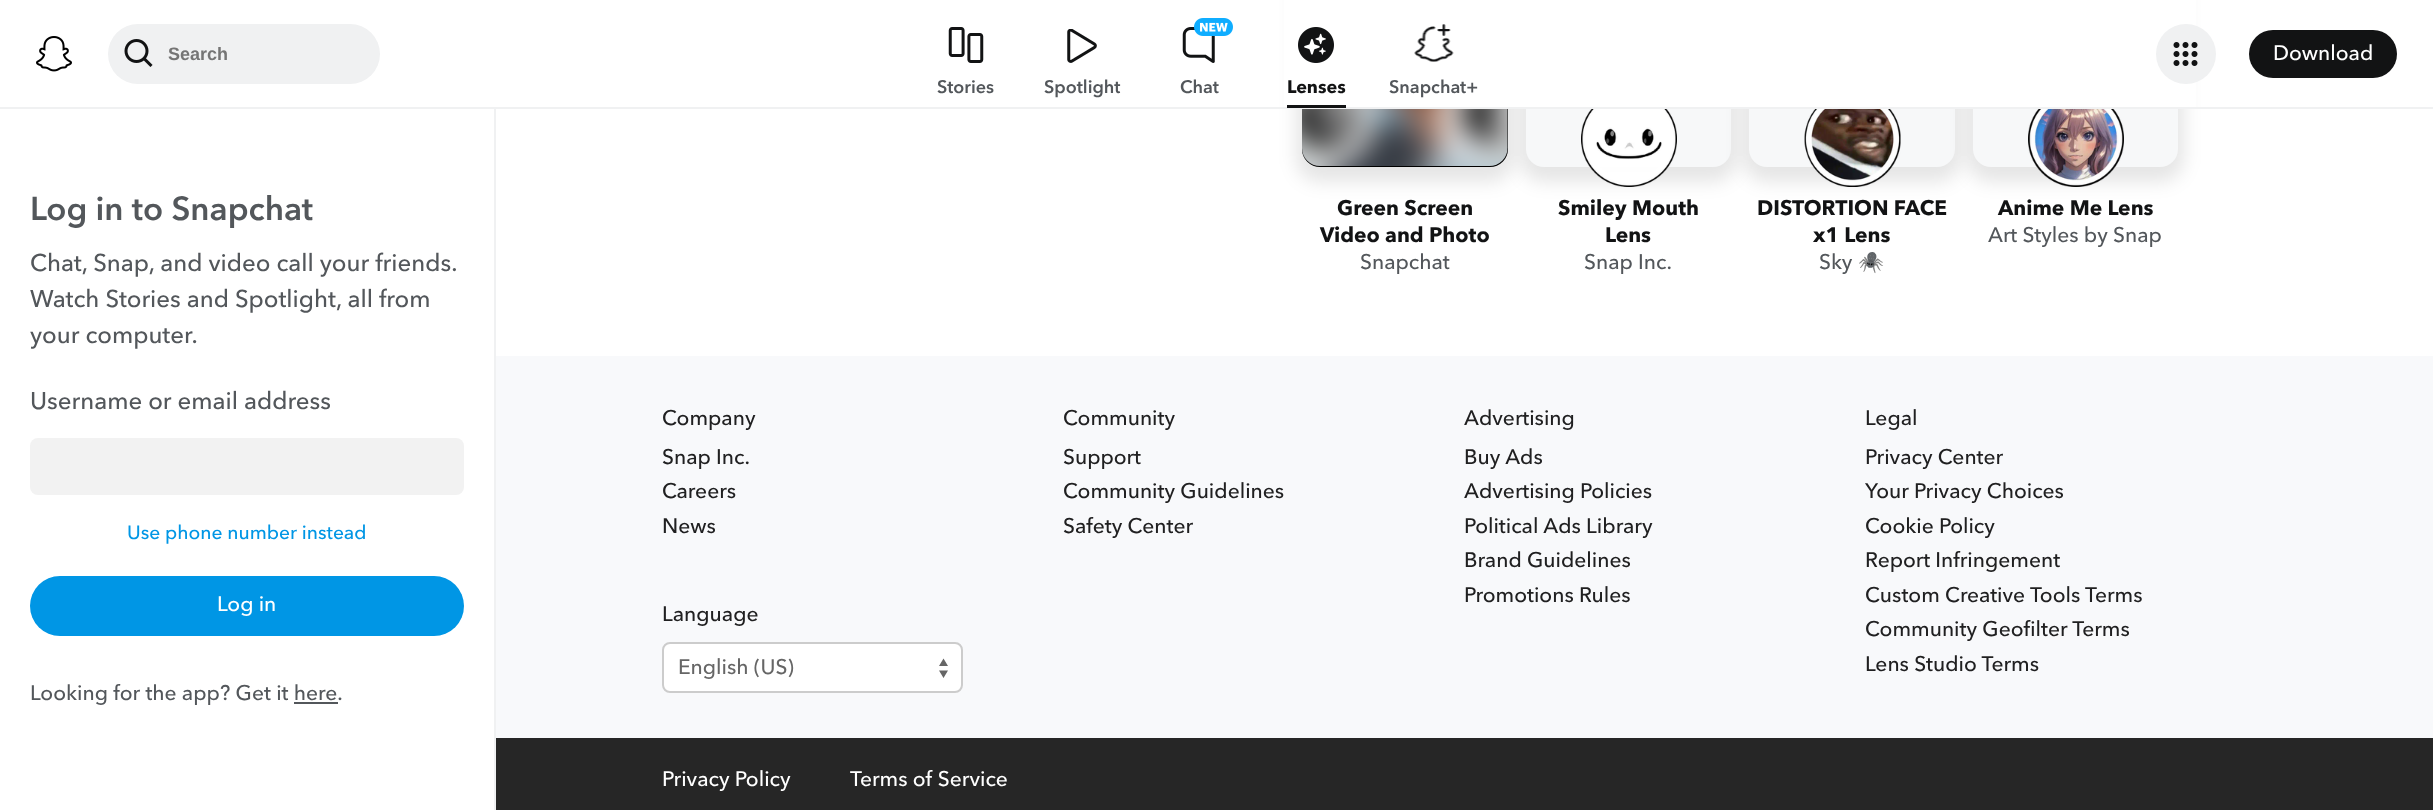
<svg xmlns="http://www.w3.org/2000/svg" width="2433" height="810">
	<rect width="100%" height="100%" fill="#FFFFFF" />
	<rect x="1296" y="-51" width="218" height="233" rx="24" fill="#000000" fill-opacity="0.1" filter="blur(9px)" />
	<rect x="1302" y="-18" width="206" height="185" rx="18" fill="#000000" />
	<image x="1302" y="109" width="206" height="57" href="assets/img10.png" />
	<rect x="1520" y="-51" width="217" height="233" rx="24" fill="#000000" fill-opacity="0.1" filter="blur(9px)" />
	<rect x="1526" y="-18" width="205" height="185" rx="18" fill="#F7F8F9" />
	<rect x="1743" y="-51" width="218" height="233" rx="24" fill="#000000" fill-opacity="0.1" filter="blur(9px)" />
	<rect x="1749" y="-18" width="206" height="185" rx="18" fill="#F7F8F9" />
	<rect x="1967" y="-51" width="217" height="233" rx="24" fill="#000000" fill-opacity="0.1" filter="blur(9px)" />
	<rect x="1973" y="-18" width="205" height="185" rx="18" fill="#F7F8F9" />
	<rect x="1284" y="0" width="912" height="107" fill="#FFFFFF" />
	<rect x="494" y="108" width="2" height="702" fill="#F0F1F2" />
	<rect x="0" y="107" width="2433" height="2" fill="#F0F1F2" />
	<image x="36" y="36" width="36" height="36" href="assets/img1.png" />
	<rect x="108" y="24" width="272" height="60" rx="30" fill="#F0F1F2" />
	<image x="124" y="39" width="29" height="28" href="assets/img2.png" />
	<text x="168" y="60" font-family="Liberation Sans" font-size="18" font-weight="700" fill="#757575">Search</text>
	<circle cx="2186" cy="54" r="30" fill="#F0F1F2" />
	<image x="2173" y="42" width="25" height="24" href="assets/img3.png" />
	<rect x="2249" y="30" width="148" height="48" rx="24" fill="#121314" />
	<text x="2273" y="60" font-family="Avenir Next" font-size="21" font-weight="500" fill="#FFFFFF">Download</text>
	<image x="948" y="27" width="36" height="36" href="assets/img4.png" />
	<text x="937" y="93" font-family="Avenir Next" font-size="18" font-weight="600" fill="#53575B">Stories</text>
	<image x="1067" y="29" width="30" height="34" href="assets/img5.png" />
	<text x="1044" y="93" font-family="Avenir Next" font-size="18" font-weight="600" fill="#53575B">Spotlight</text>
	<image x="1182" y="27" width="33" height="36" href="assets/img7.png" />
	<image x="1194" y="18" width="39" height="18" href="assets/img6.png" />
	<text x="1180" y="93" font-family="Avenir Next" font-size="18" font-weight="600" fill="#53575B">Chat</text>
	<image x="1298" y="27" width="36" height="36" href="assets/img8.png" />
	<rect x="1287" y="105" width="59" height="3" fill="#121314" />
	<text x="1287" y="93" font-family="Avenir Next" font-size="18" font-weight="700" fill="#121314">Lenses</text>
	<image x="1414" y="24" width="40" height="38" href="assets/img9.png" />
	<text x="1389" y="93" font-family="Avenir Next" font-size="18" font-weight="600" fill="#53575B">Snapchat+</text>
	<g font-family="Avenir Next" font-size="21" font-weight="700" fill="#121314">
		<text x="1337" y="215">Green Screen</text>
		<text x="1320" y="242">Video and Photo</text>
	</g>
	<text x="1360" y="269" font-family="Avenir Next" font-size="21" font-weight="500" fill="#53575B">Snapchat</text>
	<image x="1581" y="109" width="96" height="78" href="assets/img11.png" />
	<g font-family="Avenir Next" font-size="21" font-weight="700" fill="#121314">
		<text x="1558" y="215">Smiley Mouth</text>
		<text x="1605" y="242">Lens</text>
	</g>
	<text x="1584" y="269" font-family="Avenir Next" font-size="21" font-weight="500" fill="#53575B">Snap Inc.</text>
	<image x="1804" y="109" width="97" height="78" href="assets/img12.png" />
	<g font-family="Avenir Next" font-size="21" font-weight="700" fill="#121314">
		<text x="1757" y="215">DISTORTION FACE</text>
		<text x="1813" y="242">x1 Lens</text>
	</g>
	<text x="1819" y="269" font-family="Avenir Next" font-size="21" font-weight="500" fill="#53575B">Sky</text>
	<text x="1858" y="269" font-family="Noto Color Emoji" font-size="21" fill="#53575B">🕷️</text>
	<image x="2028" y="109" width="96" height="78" href="assets/img13.png" />
	<text x="1998" y="215" font-family="Avenir Next" font-size="21" font-weight="700" fill="#121314">Anime Me Lens</text>
	<text x="1988" y="242" font-family="Avenir Next" font-size="21" font-weight="500" fill="#53575B">Art Styles by Snap</text>
	<rect x="496" y="356" width="1937" height="382" fill="#F8F9FB" />
	<g font-family="Avenir Next" font-size="21" font-weight="500" fill="#202021">
		<text x="662" y="425">Company</text>
		<text x="662" y="464">Snap Inc.</text>
		<text x="662" y="498">Careers</text>
		<text x="662" y="533">News</text>
		<text x="1063" y="425">Community</text>
		<text x="1063" y="464">Support</text>
		<text x="1063" y="498">Community Guidelines</text>
		<text x="1063" y="533">Safety Center</text>
		<text x="1464" y="425">Advertising</text>
		<text x="1464" y="464">Buy Ads</text>
		<text x="1464" y="498">Advertising Policies</text>
		<text x="1464" y="533">Political Ads Library</text>
		<text x="1464" y="567">Brand Guidelines</text>
		<text x="1464" y="602">Promotions Rules</text>
		<text x="1865" y="425">Legal</text>
		<text x="1865" y="464">Privacy Center</text>
		<text x="1865" y="498">Your Privacy Choices</text>
		<text x="1865" y="533">Cookie Policy</text>
		<text x="1865" y="567">Report Infringement</text>
		<text x="1865" y="602">Custom Creative Tools Terms</text>
		<text x="1865" y="636">Community Geofilter Terms</text>
		<text x="1865" y="671">Lens Studio Terms</text>
		<text x="662" y="621">Language</text>
	</g>
	<rect x="663" y="643" width="299" height="49" rx="7" fill="#FFFFFF" stroke="#CCCCCC" stroke-width="2" />
	<text x="678" y="674" font-family="Avenir Next" font-size="21" font-weight="500" fill="#666666">English (US)</text>
	<path d="M948 666H939L943.5 658.5ZM939 670.5H948L943.5 678Z" fill="#666666" />
	<rect x="496" y="738" width="1937" height="72" fill="#262626" />
	<g font-family="Avenir Next" font-size="21" font-weight="500" fill="#FFFFFF">
		<text x="662" y="786">Privacy Policy</text>
		<text x="850" y="786">Terms of Service</text>
	</g>
	<text x="30" y="220" font-family="Avenir Next" font-size="33" font-weight="600" fill="#53575B">Log in to Snapchat</text>
	<g font-family="Avenir Next" font-size="24" font-weight="500" fill="#53575B">
		<text x="30" y="271">Chat, Snap, and video call your friends.</text>
		<text x="30" y="307">Watch Stories and Spotlight, all from</text>
		<text x="30" y="343">your computer.</text>
		<text x="30" y="409">Username or email address</text>
	</g>
	<rect x="30" y="438" width="434" height="57" rx="8" fill="#F2F2F2" />
	<text x="127" y="539" font-family="Avenir Next" font-size="19.25" font-weight="500" fill="#0096E5">Use phone number instead</text>
	<rect x="30" y="576" width="434" height="60" rx="30" fill="#0096E5" />
	<text x="217" y="611" font-family="Avenir Next" font-size="21" font-weight="500" fill="#FFFFFF">Log in</text>
	<text x="30" y="700" font-family="Avenir Next" font-size="21" font-weight="500" fill="#53575B">Looking for the app? Get it here.</text>
	<rect x="294" y="702" width="44" height="2" fill="#53575B" />
</svg>
